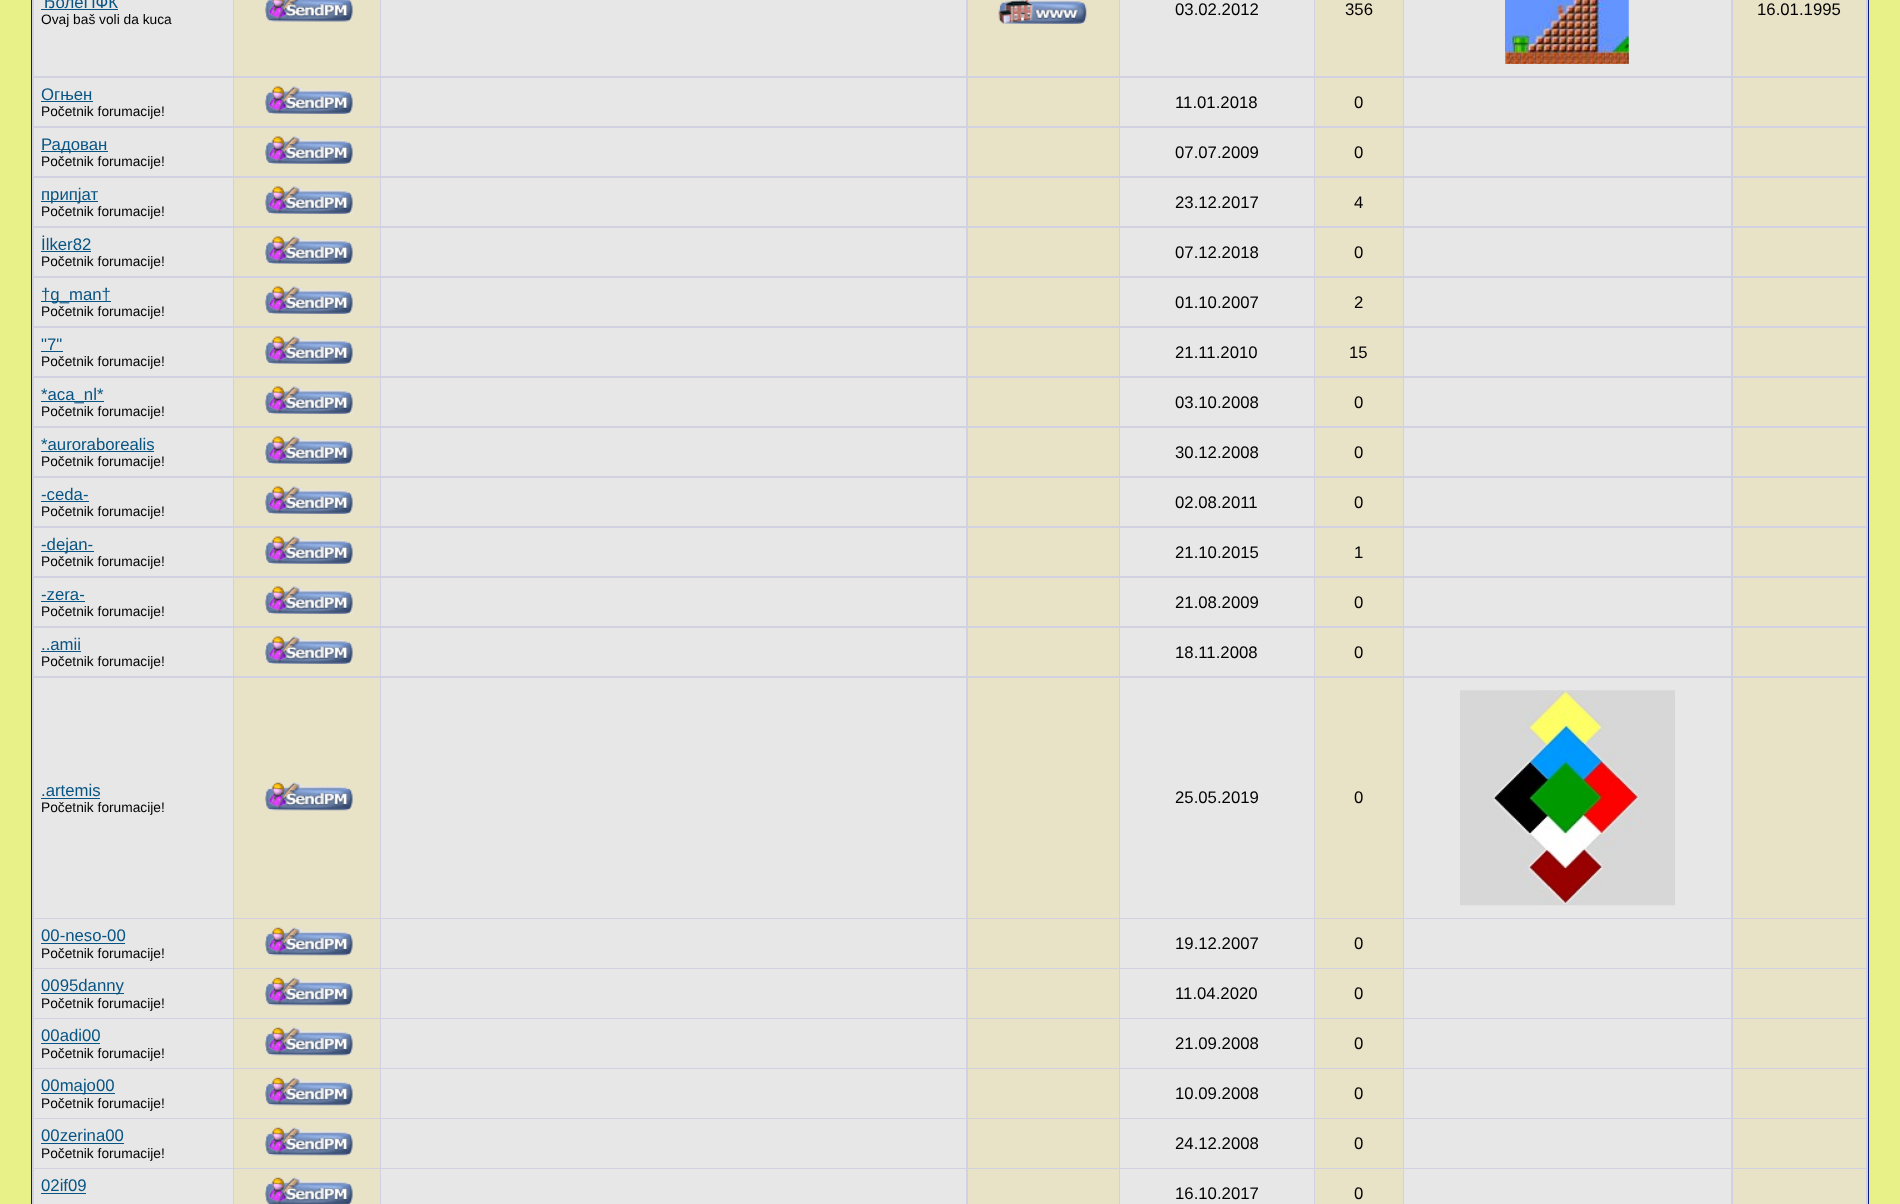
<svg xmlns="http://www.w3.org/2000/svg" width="1900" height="1204">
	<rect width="100%" height="100%" fill="#E8F088" />
	<rect x="31.5" y="-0.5" width="1837" height="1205" fill="#D1D1E1" stroke="#0B198C" />
	<rect x="34" y="0" width="199" height="76" fill="#E7E7E7" />
	<text x="41" y="8" font-family="Liberation Sans" font-size="16.75" fill="#085483">ЂолеПФК</text>
	<rect x="41" y="9" width="77" height="1" fill="#085483" />
	<text x="41" y="24" font-family="Liberation Sans" font-size="13.75" fill="#000000">Ovaj baš voli da kuca</text>
	<rect x="234" y="0" width="146" height="76" fill="#E8E2C7" />
	<image x="265" y="0" width="88" height="22" href="assets/img1.png" />
	<rect x="381" y="0" width="585" height="76" fill="#E7E7E7" />
	<rect x="968" y="0" width="151" height="76" fill="#E8E2C7" />
	<image x="998" y="0" width="89" height="24" href="assets/img2.png" />
	<rect x="1120" y="0" width="194" height="76" fill="#E7E7E7" />
	<text x="1175" y="15" font-family="Liberation Sans" font-size="16.75" fill="#000000">03.02.2012</text>
	<rect x="1315" y="0" width="88" height="76" fill="#E8E2C7" />
	<text x="1345" y="15" font-family="Liberation Sans" font-size="16.75" fill="#000000">356</text>
	<rect x="1404" y="0" width="327" height="76" fill="#E7E7E7" />
	<image x="1505" y="0" width="124" height="64" href="assets/img3.png" />
	<rect x="1733" y="0" width="133" height="76" fill="#E8E2C7" />
	<text x="1757" y="15" font-family="Liberation Sans" font-size="16.75" fill="#000000">16.01.1995</text>
	<rect x="34" y="78" width="199" height="48" fill="#E7E7E7" />
	<text x="41" y="100" font-family="Liberation Sans" font-size="16.75" fill="#085483">Огњен</text>
	<rect x="41" y="101" width="52" height="1" fill="#085483" />
	<text x="41" y="116" font-family="Liberation Sans" font-size="13.75" fill="#000000">Početnik forumacije!</text>
	<rect x="234" y="78" width="146" height="48" fill="#E8E2C7" />
	<image x="265" y="86" width="88" height="28" href="assets/img4.png" />
	<rect x="381" y="78" width="585" height="48" fill="#E7E7E7" />
	<rect x="968" y="78" width="151" height="48" fill="#E8E2C7" />
	<rect x="1120" y="78" width="194" height="48" fill="#E7E7E7" />
	<text x="1175" y="108" font-family="Liberation Sans" font-size="16.75" fill="#000000">11.01.2018</text>
	<rect x="1315" y="78" width="88" height="48" fill="#E8E2C7" />
	<text x="1354" y="108" font-family="Liberation Sans" font-size="16.75" fill="#000000">0</text>
	<rect x="1404" y="78" width="327" height="48" fill="#E7E7E7" />
	<rect x="1733" y="78" width="133" height="48" fill="#E8E2C7" />
	<rect x="34" y="128" width="199" height="48" fill="#E7E7E7" />
	<rect x="41" y="151" width="67" height="1" fill="#085483" />
	<text x="41" y="150" font-family="Liberation Sans" font-size="16.75" fill="#085483">Радован</text>
	<text x="41" y="166" font-family="Liberation Sans" font-size="13.75" fill="#000000">Početnik forumacije!</text>
	<rect x="234" y="128" width="146" height="48" fill="#E8E2C7" />
	<image x="265" y="136" width="88" height="28" href="assets/img4.png" />
	<rect x="381" y="128" width="585" height="48" fill="#E7E7E7" />
	<rect x="968" y="128" width="151" height="48" fill="#E8E2C7" />
	<rect x="1120" y="128" width="194" height="48" fill="#E7E7E7" />
	<text x="1175" y="158" font-family="Liberation Sans" font-size="16.75" fill="#000000">07.07.2009</text>
	<rect x="1315" y="128" width="88" height="48" fill="#E8E2C7" />
	<text x="1354" y="158" font-family="Liberation Sans" font-size="16.75" fill="#000000">0</text>
	<rect x="1404" y="128" width="327" height="48" fill="#E7E7E7" />
	<rect x="1733" y="128" width="133" height="48" fill="#E8E2C7" />
	<rect x="34" y="178" width="199" height="48" fill="#E7E7E7" />
	<rect x="41" y="201" width="57" height="1" fill="#085483" />
	<text x="41" y="200" font-family="Liberation Sans" font-size="16.75" fill="#085483">припјат</text>
	<text x="41" y="216" font-family="Liberation Sans" font-size="13.75" fill="#000000">Početnik forumacije!</text>
	<rect x="234" y="178" width="146" height="48" fill="#E8E2C7" />
	<image x="265" y="186" width="88" height="28" href="assets/img4.png" />
	<rect x="381" y="178" width="585" height="48" fill="#E7E7E7" />
	<rect x="968" y="178" width="151" height="48" fill="#E8E2C7" />
	<rect x="1120" y="178" width="194" height="48" fill="#E7E7E7" />
	<text x="1175" y="208" font-family="Liberation Sans" font-size="16.75" fill="#000000">23.12.2017</text>
	<rect x="1315" y="178" width="88" height="48" fill="#E8E2C7" />
	<text x="1354" y="208" font-family="Liberation Sans" font-size="16.75" fill="#000000">4</text>
	<rect x="1404" y="178" width="327" height="48" fill="#E7E7E7" />
	<rect x="1733" y="178" width="133" height="48" fill="#E8E2C7" />
	<rect x="34" y="228" width="199" height="48" fill="#E7E7E7" />
	<text x="41" y="250" font-family="Liberation Sans" font-size="16.75" fill="#085483">İlker82</text>
	<rect x="41" y="251" width="50" height="1" fill="#085483" />
	<text x="41" y="266" font-family="Liberation Sans" font-size="13.75" fill="#000000">Početnik forumacije!</text>
	<rect x="234" y="228" width="146" height="48" fill="#E8E2C7" />
	<image x="265" y="236" width="88" height="28" href="assets/img4.png" />
	<rect x="381" y="228" width="585" height="48" fill="#E7E7E7" />
	<rect x="968" y="228" width="151" height="48" fill="#E8E2C7" />
	<rect x="1120" y="228" width="194" height="48" fill="#E7E7E7" />
	<text x="1175" y="258" font-family="Liberation Sans" font-size="16.75" fill="#000000">07.12.2018</text>
	<rect x="1315" y="228" width="88" height="48" fill="#E8E2C7" />
	<text x="1354" y="258" font-family="Liberation Sans" font-size="16.75" fill="#000000">0</text>
	<rect x="1404" y="228" width="327" height="48" fill="#E7E7E7" />
	<rect x="1733" y="228" width="133" height="48" fill="#E8E2C7" />
	<rect x="34" y="278" width="199" height="48" fill="#E7E7E7" />
	<rect x="41" y="301" width="70" height="1" fill="#085483" />
	<text x="41" y="300" font-family="Liberation Sans" font-size="16.75" fill="#085483">†g_man†</text>
	<text x="41" y="316" font-family="Liberation Sans" font-size="13.75" fill="#000000">Početnik forumacije!</text>
	<rect x="234" y="278" width="146" height="48" fill="#E8E2C7" />
	<image x="265" y="286" width="88" height="28" href="assets/img4.png" />
	<rect x="381" y="278" width="585" height="48" fill="#E7E7E7" />
	<rect x="968" y="278" width="151" height="48" fill="#E8E2C7" />
	<rect x="1120" y="278" width="194" height="48" fill="#E7E7E7" />
	<text x="1175" y="308" font-family="Liberation Sans" font-size="16.75" fill="#000000">01.10.2007</text>
	<rect x="1315" y="278" width="88" height="48" fill="#E8E2C7" />
	<text x="1354" y="308" font-family="Liberation Sans" font-size="16.75" fill="#000000">2</text>
	<rect x="1404" y="278" width="327" height="48" fill="#E7E7E7" />
	<rect x="1733" y="278" width="133" height="48" fill="#E8E2C7" />
	<rect x="34" y="328" width="199" height="48" fill="#E7E7E7" />
	<text x="41" y="350" font-family="Liberation Sans" font-size="16.75" fill="#085483">"7"</text>
	<rect x="41" y="351" width="22" height="1" fill="#085483" />
	<text x="41" y="366" font-family="Liberation Sans" font-size="13.75" fill="#000000">Početnik forumacije!</text>
	<rect x="234" y="328" width="146" height="48" fill="#E8E2C7" />
	<image x="265" y="336" width="88" height="28" href="assets/img5.png" />
	<rect x="381" y="328" width="585" height="48" fill="#E7E7E7" />
	<rect x="968" y="328" width="151" height="48" fill="#E8E2C7" />
	<rect x="1120" y="328" width="194" height="48" fill="#E7E7E7" />
	<text x="1175" y="358" font-family="Liberation Sans" font-size="16.75" fill="#000000">21.11.2010</text>
	<rect x="1315" y="328" width="88" height="48" fill="#E8E2C7" />
	<text x="1349" y="358" font-family="Liberation Sans" font-size="16.75" fill="#000000">15</text>
	<rect x="1404" y="328" width="327" height="48" fill="#E7E7E7" />
	<rect x="1733" y="328" width="133" height="48" fill="#E8E2C7" />
	<rect x="34" y="378" width="199" height="48" fill="#E7E7E7" />
	<rect x="41" y="401" width="63" height="1" fill="#085483" />
	<text x="41" y="400" font-family="Liberation Sans" font-size="16.75" fill="#085483">*aca_nl*</text>
	<text x="41" y="416" font-family="Liberation Sans" font-size="13.75" fill="#000000">Početnik forumacije!</text>
	<rect x="234" y="378" width="146" height="48" fill="#E8E2C7" />
	<image x="265" y="386" width="88" height="28" href="assets/img4.png" />
	<rect x="381" y="378" width="585" height="48" fill="#E7E7E7" />
	<rect x="968" y="378" width="151" height="48" fill="#E8E2C7" />
	<rect x="1120" y="378" width="194" height="48" fill="#E7E7E7" />
	<text x="1175" y="408" font-family="Liberation Sans" font-size="16.75" fill="#000000">03.10.2008</text>
	<rect x="1315" y="378" width="88" height="48" fill="#E8E2C7" />
	<text x="1354" y="408" font-family="Liberation Sans" font-size="16.75" fill="#000000">0</text>
	<rect x="1404" y="378" width="327" height="48" fill="#E7E7E7" />
	<rect x="1733" y="378" width="133" height="48" fill="#E8E2C7" />
	<rect x="34" y="428" width="199" height="48" fill="#E7E7E7" />
	<text x="41" y="450" font-family="Liberation Sans" font-size="16.75" fill="#085483">*auroraborealis</text>
	<rect x="41" y="451" width="113" height="1" fill="#085483" />
	<text x="41" y="466" font-family="Liberation Sans" font-size="13.75" fill="#000000">Početnik forumacije!</text>
	<rect x="234" y="428" width="146" height="48" fill="#E8E2C7" />
	<image x="265" y="436" width="88" height="28" href="assets/img4.png" />
	<rect x="381" y="428" width="585" height="48" fill="#E7E7E7" />
	<rect x="968" y="428" width="151" height="48" fill="#E8E2C7" />
	<rect x="1120" y="428" width="194" height="48" fill="#E7E7E7" />
	<text x="1175" y="458" font-family="Liberation Sans" font-size="16.75" fill="#000000">30.12.2008</text>
	<rect x="1315" y="428" width="88" height="48" fill="#E8E2C7" />
	<text x="1354" y="458" font-family="Liberation Sans" font-size="16.75" fill="#000000">0</text>
	<rect x="1404" y="428" width="327" height="48" fill="#E7E7E7" />
	<rect x="1733" y="428" width="133" height="48" fill="#E8E2C7" />
	<rect x="34" y="478" width="199" height="48" fill="#E7E7E7" />
	<text x="41" y="500" font-family="Liberation Sans" font-size="16.75" fill="#085483">-ceda-</text>
	<rect x="41" y="501" width="48" height="1" fill="#085483" />
	<text x="41" y="516" font-family="Liberation Sans" font-size="13.75" fill="#000000">Početnik forumacije!</text>
	<rect x="234" y="478" width="146" height="48" fill="#E8E2C7" />
	<image x="265" y="486" width="88" height="28" href="assets/img4.png" />
	<rect x="381" y="478" width="585" height="48" fill="#E7E7E7" />
	<rect x="968" y="478" width="151" height="48" fill="#E8E2C7" />
	<rect x="1120" y="478" width="194" height="48" fill="#E7E7E7" />
	<text x="1175" y="508" font-family="Liberation Sans" font-size="16.75" fill="#000000">02.08.2011</text>
	<rect x="1315" y="478" width="88" height="48" fill="#E8E2C7" />
	<text x="1354" y="508" font-family="Liberation Sans" font-size="16.75" fill="#000000">0</text>
	<rect x="1404" y="478" width="327" height="48" fill="#E7E7E7" />
	<rect x="1733" y="478" width="133" height="48" fill="#E8E2C7" />
	<rect x="34" y="528" width="199" height="48" fill="#E7E7E7" />
	<rect x="41" y="551" width="53" height="1" fill="#085483" />
	<text x="41" y="550" font-family="Liberation Sans" font-size="16.75" fill="#085483">-dejan-</text>
	<text x="41" y="566" font-family="Liberation Sans" font-size="13.75" fill="#000000">Početnik forumacije!</text>
	<rect x="234" y="528" width="146" height="48" fill="#E8E2C7" />
	<image x="265" y="536" width="88" height="28" href="assets/img4.png" />
	<rect x="381" y="528" width="585" height="48" fill="#E7E7E7" />
	<rect x="968" y="528" width="151" height="48" fill="#E8E2C7" />
	<rect x="1120" y="528" width="194" height="48" fill="#E7E7E7" />
	<text x="1175" y="558" font-family="Liberation Sans" font-size="16.75" fill="#000000">21.10.2015</text>
	<rect x="1315" y="528" width="88" height="48" fill="#E8E2C7" />
	<text x="1354" y="558" font-family="Liberation Sans" font-size="16.75" fill="#000000">1</text>
	<rect x="1404" y="528" width="327" height="48" fill="#E7E7E7" />
	<rect x="1733" y="528" width="133" height="48" fill="#E8E2C7" />
	<rect x="34" y="578" width="199" height="48" fill="#E7E7E7" />
	<text x="41" y="600" font-family="Liberation Sans" font-size="16.75" fill="#085483">-zera-</text>
	<rect x="41" y="601" width="44" height="1" fill="#085483" />
	<text x="41" y="616" font-family="Liberation Sans" font-size="13.75" fill="#000000">Početnik forumacije!</text>
	<rect x="234" y="578" width="146" height="48" fill="#E8E2C7" />
	<image x="265" y="586" width="88" height="28" href="assets/img4.png" />
	<rect x="381" y="578" width="585" height="48" fill="#E7E7E7" />
	<rect x="968" y="578" width="151" height="48" fill="#E8E2C7" />
	<rect x="1120" y="578" width="194" height="48" fill="#E7E7E7" />
	<text x="1175" y="608" font-family="Liberation Sans" font-size="16.75" fill="#000000">21.08.2009</text>
	<rect x="1315" y="578" width="88" height="48" fill="#E8E2C7" />
	<text x="1354" y="608" font-family="Liberation Sans" font-size="16.75" fill="#000000">0</text>
	<rect x="1404" y="578" width="327" height="48" fill="#E7E7E7" />
	<rect x="1733" y="578" width="133" height="48" fill="#E8E2C7" />
	<rect x="34" y="628" width="199" height="48" fill="#E7E7E7" />
	<text x="41" y="650" font-family="Liberation Sans" font-size="16.75" fill="#085483">..amii</text>
	<rect x="41" y="651" width="40" height="1" fill="#085483" />
	<text x="41" y="666" font-family="Liberation Sans" font-size="13.75" fill="#000000">Početnik forumacije!</text>
	<rect x="234" y="628" width="146" height="48" fill="#E8E2C7" />
	<image x="265" y="636" width="88" height="28" href="assets/img4.png" />
	<rect x="381" y="628" width="585" height="48" fill="#E7E7E7" />
	<rect x="968" y="628" width="151" height="48" fill="#E8E2C7" />
	<rect x="1120" y="628" width="194" height="48" fill="#E7E7E7" />
	<text x="1175" y="658" font-family="Liberation Sans" font-size="16.75" fill="#000000">18.11.2008</text>
	<rect x="1315" y="628" width="88" height="48" fill="#E8E2C7" />
	<text x="1354" y="658" font-family="Liberation Sans" font-size="16.75" fill="#000000">0</text>
	<rect x="1404" y="628" width="327" height="48" fill="#E7E7E7" />
	<rect x="1733" y="628" width="133" height="48" fill="#E8E2C7" />
	<rect x="34" y="678" width="199" height="240" fill="#E7E7E7" />
	<text x="41" y="796" font-family="Liberation Sans" font-size="16.75" fill="#085483">.artemis</text>
	<rect x="41" y="798" width="59" height="1" fill="#085483" />
	<text x="41" y="812" font-family="Liberation Sans" font-size="13.75" fill="#000000">Početnik forumacije!</text>
	<rect x="234" y="678" width="146" height="240" fill="#E8E2C7" />
	<image x="265" y="782" width="88" height="29" href="assets/img6.png" />
	<rect x="381" y="678" width="585" height="240" fill="#E7E7E7" />
	<rect x="968" y="678" width="151" height="240" fill="#E8E2C7" />
	<rect x="1120" y="678" width="194" height="240" fill="#E7E7E7" />
	<text x="1175" y="803" font-family="Liberation Sans" font-size="16.75" fill="#000000">25.05.2019</text>
	<rect x="1315" y="678" width="88" height="240" fill="#E8E2C7" />
	<text x="1354" y="803" font-family="Liberation Sans" font-size="16.75" fill="#000000">0</text>
	<rect x="1404" y="678" width="327" height="240" fill="#E7E7E7" />
	<image x="1460" y="690" width="215" height="216" href="assets/img7.png" />
	<rect x="1733" y="678" width="133" height="240" fill="#E8E2C7" />
	<rect x="34" y="919" width="199" height="49" fill="#E7E7E7" />
	<text x="41" y="941" font-family="Liberation Sans" font-size="16.75" fill="#085483">00-neso-00</text>
	<rect x="41" y="943" width="84" height="1" fill="#085483" />
	<text x="41" y="958" font-family="Liberation Sans" font-size="13.75" fill="#000000">Početnik forumacije!</text>
	<rect x="234" y="919" width="146" height="49" fill="#E8E2C7" />
	<image x="265" y="927" width="88" height="29" href="assets/img6.png" />
	<rect x="381" y="919" width="585" height="49" fill="#E7E7E7" />
	<rect x="968" y="919" width="151" height="49" fill="#E8E2C7" />
	<rect x="1120" y="919" width="194" height="49" fill="#E7E7E7" />
	<text x="1175" y="949" font-family="Liberation Sans" font-size="16.75" fill="#000000">19.12.2007</text>
	<rect x="1315" y="919" width="88" height="49" fill="#E8E2C7" />
	<text x="1354" y="949" font-family="Liberation Sans" font-size="16.75" fill="#000000">0</text>
	<rect x="1404" y="919" width="327" height="49" fill="#E7E7E7" />
	<rect x="1733" y="919" width="133" height="49" fill="#E8E2C7" />
	<rect x="34" y="969" width="199" height="49" fill="#E7E7E7" />
	<rect x="41" y="993" width="83" height="1" fill="#085483" />
	<text x="41" y="991" font-family="Liberation Sans" font-size="16.75" fill="#085483">0095danny</text>
	<text x="41" y="1008" font-family="Liberation Sans" font-size="13.75" fill="#000000">Početnik forumacije!</text>
	<rect x="234" y="969" width="146" height="49" fill="#E8E2C7" />
	<image x="265" y="977" width="88" height="29" href="assets/img6.png" />
	<rect x="381" y="969" width="585" height="49" fill="#E7E7E7" />
	<rect x="968" y="969" width="151" height="49" fill="#E8E2C7" />
	<rect x="1120" y="969" width="194" height="49" fill="#E7E7E7" />
	<text x="1175" y="999" font-family="Liberation Sans" font-size="16.75" fill="#000000">11.04.2020</text>
	<rect x="1315" y="969" width="88" height="49" fill="#E8E2C7" />
	<text x="1354" y="999" font-family="Liberation Sans" font-size="16.75" fill="#000000">0</text>
	<rect x="1404" y="969" width="327" height="49" fill="#E7E7E7" />
	<rect x="1733" y="969" width="133" height="49" fill="#E8E2C7" />
	<rect x="34" y="1019" width="199" height="49" fill="#E7E7E7" />
	<text x="41" y="1041" font-family="Liberation Sans" font-size="16.75" fill="#085483">00adi00</text>
	<rect x="41" y="1043" width="59" height="1" fill="#085483" />
	<text x="41" y="1058" font-family="Liberation Sans" font-size="13.75" fill="#000000">Početnik forumacije!</text>
	<rect x="234" y="1019" width="146" height="49" fill="#E8E2C7" />
	<image x="265" y="1027" width="88" height="29" href="assets/img6.png" />
	<rect x="381" y="1019" width="585" height="49" fill="#E7E7E7" />
	<rect x="968" y="1019" width="151" height="49" fill="#E8E2C7" />
	<rect x="1120" y="1019" width="194" height="49" fill="#E7E7E7" />
	<text x="1175" y="1049" font-family="Liberation Sans" font-size="16.75" fill="#000000">21.09.2008</text>
	<rect x="1315" y="1019" width="88" height="49" fill="#E8E2C7" />
	<text x="1354" y="1049" font-family="Liberation Sans" font-size="16.75" fill="#000000">0</text>
	<rect x="1404" y="1019" width="327" height="49" fill="#E7E7E7" />
	<rect x="1733" y="1019" width="133" height="49" fill="#E8E2C7" />
	<rect x="34" y="1069" width="199" height="49" fill="#E7E7E7" />
	<rect x="41" y="1093" width="74" height="1" fill="#085483" />
	<text x="41" y="1091" font-family="Liberation Sans" font-size="16.75" fill="#085483">00majo00</text>
	<text x="41" y="1108" font-family="Liberation Sans" font-size="13.75" fill="#000000">Početnik forumacije!</text>
	<rect x="234" y="1069" width="146" height="49" fill="#E8E2C7" />
	<image x="265" y="1077" width="88" height="29" href="assets/img6.png" />
	<rect x="381" y="1069" width="585" height="49" fill="#E7E7E7" />
	<rect x="968" y="1069" width="151" height="49" fill="#E8E2C7" />
	<rect x="1120" y="1069" width="194" height="49" fill="#E7E7E7" />
	<text x="1175" y="1099" font-family="Liberation Sans" font-size="16.75" fill="#000000">10.09.2008</text>
	<rect x="1315" y="1069" width="88" height="49" fill="#E8E2C7" />
	<text x="1354" y="1099" font-family="Liberation Sans" font-size="16.75" fill="#000000">0</text>
	<rect x="1404" y="1069" width="327" height="49" fill="#E7E7E7" />
	<rect x="1733" y="1069" width="133" height="49" fill="#E8E2C7" />
	<rect x="34" y="1119" width="199" height="49" fill="#E7E7E7" />
	<text x="41" y="1141" font-family="Liberation Sans" font-size="16.75" fill="#085483">00zerina00</text>
	<rect x="41" y="1143" width="83" height="1" fill="#085483" />
	<text x="41" y="1158" font-family="Liberation Sans" font-size="13.75" fill="#000000">Početnik forumacije!</text>
	<rect x="234" y="1119" width="146" height="49" fill="#E8E2C7" />
	<image x="265" y="1127" width="88" height="29" href="assets/img6.png" />
	<rect x="381" y="1119" width="585" height="49" fill="#E7E7E7" />
	<rect x="968" y="1119" width="151" height="49" fill="#E8E2C7" />
	<rect x="1120" y="1119" width="194" height="49" fill="#E7E7E7" />
	<text x="1175" y="1149" font-family="Liberation Sans" font-size="16.75" fill="#000000">24.12.2008</text>
	<rect x="1315" y="1119" width="88" height="49" fill="#E8E2C7" />
	<text x="1354" y="1149" font-family="Liberation Sans" font-size="16.75" fill="#000000">0</text>
	<rect x="1404" y="1119" width="327" height="49" fill="#E7E7E7" />
	<rect x="1733" y="1119" width="133" height="49" fill="#E8E2C7" />
	<rect x="34" y="1169" width="199" height="35" fill="#E7E7E7" />
	<text x="41" y="1191" font-family="Liberation Sans" font-size="16.75" fill="#085483">02if09</text>
	<rect x="41" y="1193" width="45" height="1" fill="#085483" />
	<rect x="234" y="1169" width="146" height="35" fill="#E8E2C7" />
	<image x="265" y="1177" width="88" height="27" href="assets/img8.png" />
	<rect x="381" y="1169" width="585" height="35" fill="#E7E7E7" />
	<rect x="968" y="1169" width="151" height="35" fill="#E8E2C7" />
	<rect x="1404" y="1169" width="327" height="35" fill="#E7E7E7" />
	<rect x="1733" y="1169" width="133" height="35" fill="#E8E2C7" />
	<rect x="1120" y="1169" width="194" height="35" fill="#E7E7E7" />
	<text x="1175" y="1199" font-family="Liberation Sans" font-size="16.75" fill="#000000">16.10.2017</text>
	<rect x="1315" y="1169" width="88" height="35" fill="#E8E2C7" />
	<text x="1354" y="1199" font-family="Liberation Sans" font-size="16.75" fill="#000000">0</text>
</svg>
